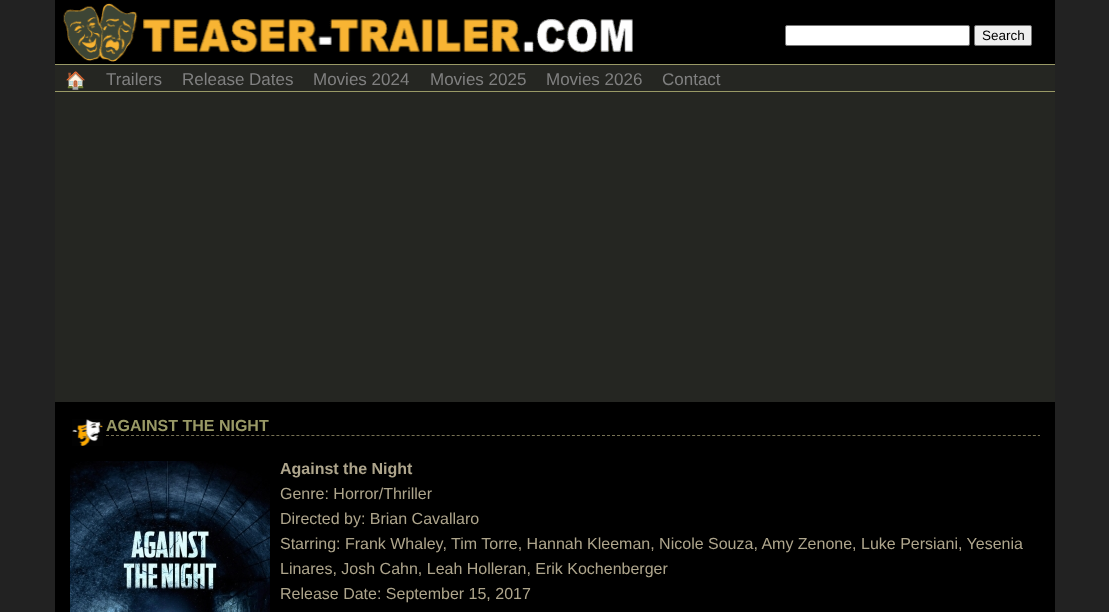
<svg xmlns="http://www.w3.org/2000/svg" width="1109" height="612">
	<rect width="100%" height="100%" fill="#222222" />
	<rect x="55" y="65" width="1000" height="337" fill="#252622" />
	<rect x="55" y="0" width="1000" height="64" fill="#000000" />
	<image x="63" y="3" width="570" height="59" href="assets/img1.png" />
	<rect x="785.5" y="25.5" width="184" height="20" rx="1.5" fill="#FFFFFF" stroke="#767676" />
	<rect x="974.5" y="25.5" width="57" height="20" rx="1.5" fill="#EFEFEF" stroke="#767676" />
	<text x="982" y="40" font-family="Liberation Sans" font-size="13.5" fill="#000000">Search</text>
	<rect x="55" y="64" width="1000" height="1" fill="#999966" />
	<rect x="55" y="91" width="1000" height="1" fill="#999966" />
	<text x="65" y="86" font-family="Noto Color Emoji" font-size="17" fill="#808080">🏠</text>
	<g font-family="Liberation Sans" font-size="17" fill="#808080">
		<text x="106" y="85">Trailers</text>
		<text x="182" y="85">Release Dates</text>
		<text x="313" y="85">Movies 2024</text>
		<text x="430" y="85">Movies 2025</text>
		<text x="546" y="85">Movies 2026</text>
		<text x="662" y="85">Contact</text>
	</g>
	<rect x="55" y="402" width="1000" height="210" fill="#000000" />
	<image x="72" y="419" width="31" height="27" href="assets/img2.png" />
	<path d="M106 435.5H1040" fill="none" stroke="#767154" stroke-dasharray="3 2.01" />
	<text x="106" y="431" font-family="Liberation Sans" font-size="16" font-weight="700" fill="#999966">AGAINST THE NIGHT</text>
	<image x="70" y="461" width="200" height="151" href="assets/img3.png" />
	<text x="280" y="474" font-family="Liberation Sans" font-size="16" font-weight="700" fill="#AEA58C">Against the Night</text>
	<g font-family="Liberation Sans" font-size="16" fill="#AEA58C">
		<text x="280" y="499">Genre: Horror/Thriller</text>
		<text x="280" y="524">Directed by: Brian Cavallaro</text>
		<text x="280" y="549">Starring: Frank Whaley, Tim Torre, Hannah Kleeman, Nicole Souza, Amy Zenone, Luke Persiani, Yesenia</text>
		<text x="280" y="574">Linares, Josh Cahn, Leah Holleran, Erik Kochenberger</text>
		<text x="280" y="599">Release Date: September 15, 2017</text>
	</g>
</svg>
